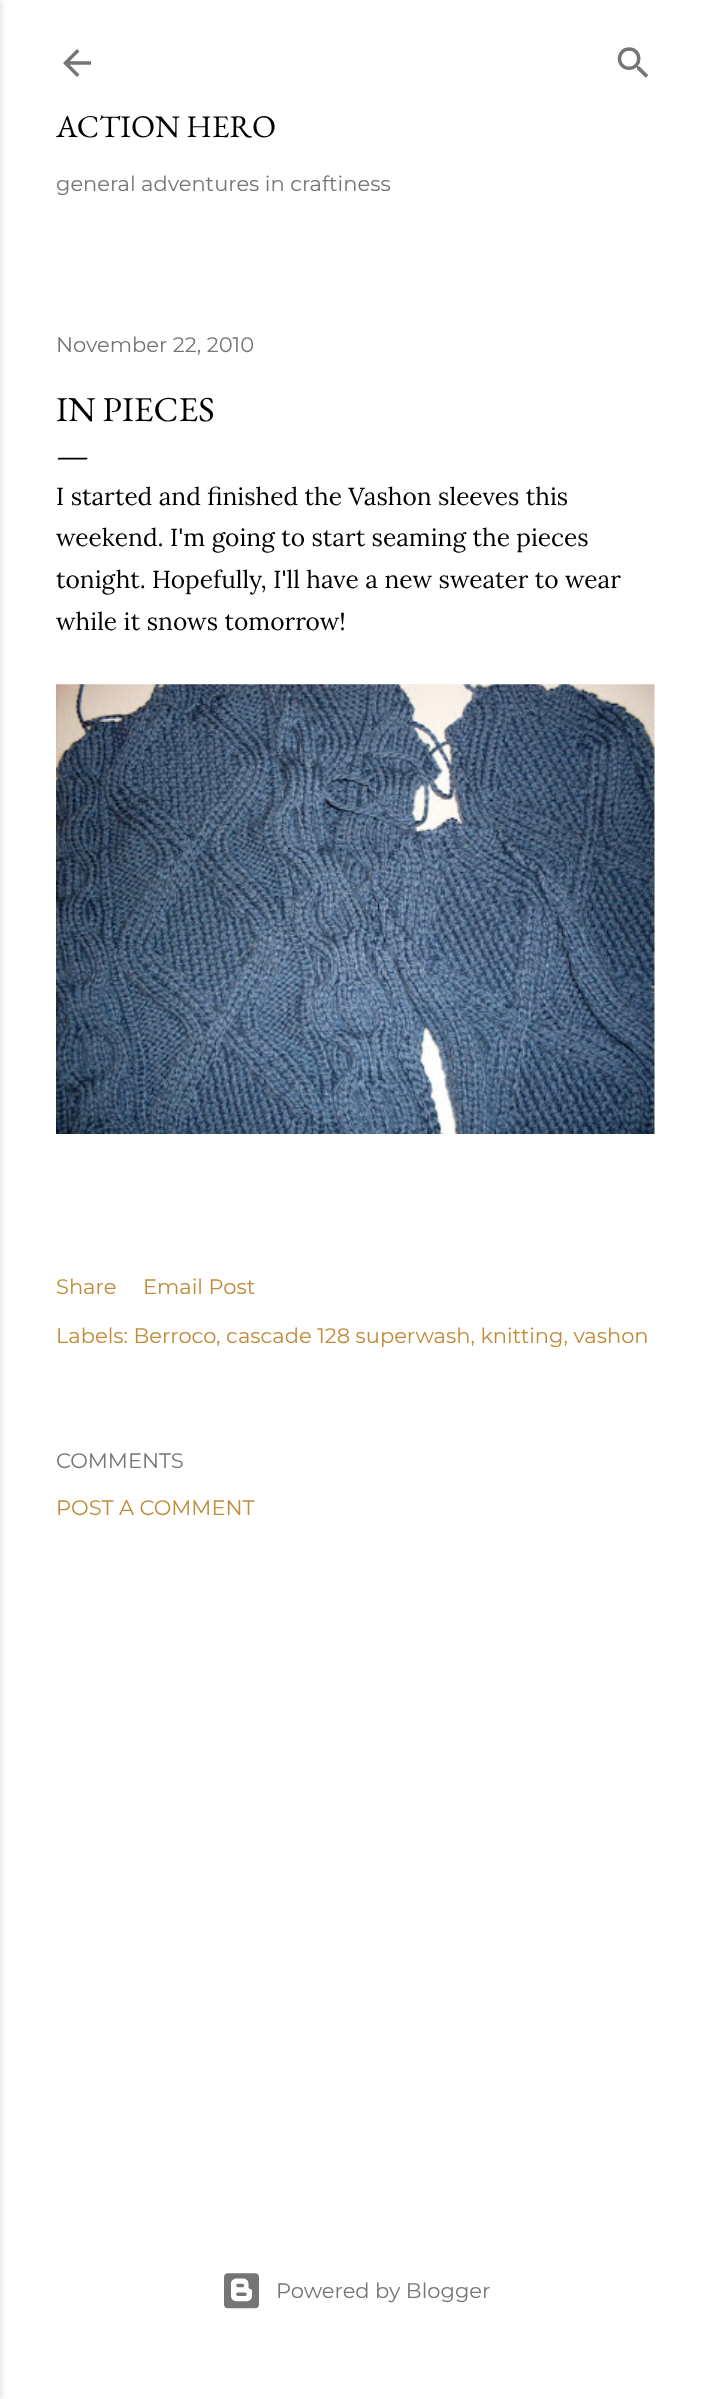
<svg xmlns="http://www.w3.org/2000/svg" width="710" height="2399">
	<rect width="100%" height="100%" fill="#FFFFFF" />
	<rect x="-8" y="0" width="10" height="2399" fill="#000000" fill-opacity="0.1" filter="blur(2.5px)" />
	<image x="63" y="49" width="28" height="28" href="assets/img1.png" />
	<image x="617" y="47" width="32" height="31" href="assets/img2.png" />
	<text x="56" y="137" font-family="EB Garamond" font-size="31.5" fill="#000000">ACTION HERO</text>
	<g font-family="Montserrat" font-size="21" fill="#757575">
		<text x="56" y="191">general adventures in craftiness</text>
		<text x="56" y="352">November 22, 2010</text>
	</g>
	<g font-family="EB Garamond" font-size="35" fill="#000000">
		<text x="56" y="421">IN PIECES</text>
		<text x="56" y="466">—</text>
	</g>
	<g font-family="Lora" font-size="24.5" fill="#000000">
		<text x="56" y="505">I started and finished the Vashon sleeves this</text>
		<text x="56" y="546">weekend. I'm going to start seaming the pieces</text>
		<text x="56" y="588">tonight. Hopefully, I'll have a new sweater to wear</text>
		<text x="56" y="630">while it snows tomorrow!</text>
	</g>
	<image x="56" y="684" width="599" height="450" href="assets/img3.png" />
	<g font-family="Montserrat" font-size="21" fill="#BF8B38">
		<text x="56" y="1294">Share</text>
		<text x="143" y="1294">Email Post</text>
		<text x="56" y="1343">Labels: Berroco, cascade 128 superwash, knitting, vashon</text>
	</g>
	<text x="56" y="1468" font-family="Montserrat" font-size="21" fill="#757575">COMMENTS</text>
	<text x="56" y="1515" font-family="Montserrat" font-size="21" fill="#BF8B38">POST A COMMENT</text>
	<image x="224" y="2273" width="35" height="36" href="assets/img4.png" />
	<text x="276" y="2298" font-family="Montserrat" font-size="21" fill="#757575">Powered by Blogger</text>
</svg>
